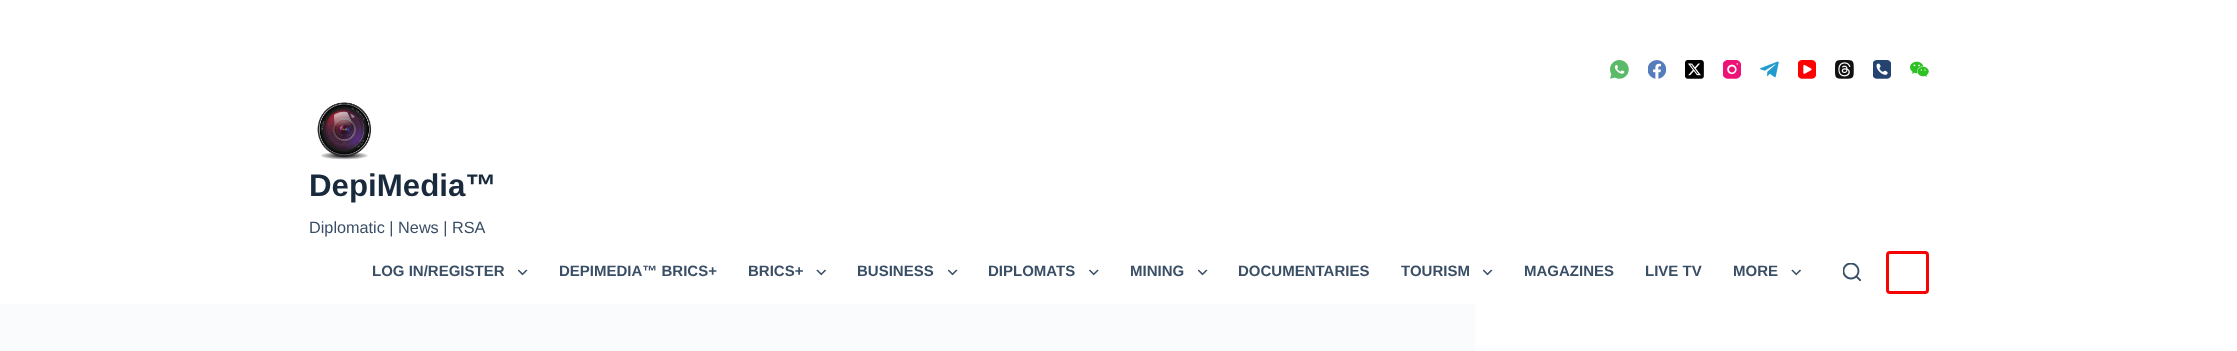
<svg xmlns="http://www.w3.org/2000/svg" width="2237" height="351">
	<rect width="100%" height="100%" fill="#FAFBFC" />
	<rect x="0" y="0" width="2237" height="304" fill="#FFFFFF" />
	<image x="1610" y="60" width="19" height="19" href="assets/img1.png" />
	<image x="1648" y="60" width="18" height="19" href="assets/img2.png" />
	<image x="1685" y="60" width="19" height="19" href="assets/img3.png" />
	<image x="1723" y="60" width="18" height="19" href="assets/img4.png" />
	<image x="1760" y="61" width="19" height="17" href="assets/img5.png" />
	<image x="1798" y="60" width="18" height="19" href="assets/img6.png" />
	<image x="1835" y="60" width="19" height="19" href="assets/img7.png" />
	<image x="1873" y="60" width="18" height="19" href="assets/img8.png" />
	<image x="1910" y="61" width="19" height="16" href="assets/img9.png" />
	<image x="317" y="102" width="55" height="58" href="assets/img10.png" />
	<text x="309" y="196" font-family="Liberation Sans" font-size="31.25" font-weight="700" fill="#192A3D">DepiMedia™</text>
	<text x="309" y="233" font-family="Liberation Sans" font-size="16.25" fill="#3A4F66">Diplomatic | News | RSA</text>
	<text x="372" y="276" font-family="Liberation Sans" font-size="15" font-weight="700" fill="#3A4F66">LOG IN/REGISTER</text>
	<image x="518" y="269" width="10" height="7" href="assets/img11.png" />
	<g font-family="Liberation Sans" font-size="15" font-weight="700" fill="#3A4F66">
		<text x="559" y="276">DEPIMEDIA™ BRICS+</text>
		<text x="748" y="276">BRICS+</text>
	</g>
	<image x="816" y="269" width="10" height="7" href="assets/img12.png" />
	<text x="857" y="276" font-family="Liberation Sans" font-size="15" font-weight="700" fill="#3A4F66">BUSINESS</text>
	<image x="948" y="269" width="10" height="7" href="assets/img11.png" />
	<text x="988" y="276" font-family="Liberation Sans" font-size="15" font-weight="700" fill="#3A4F66">DIPLOMATS</text>
	<image x="1089" y="269" width="10" height="7" href="assets/img13.png" />
	<text x="1130" y="276" font-family="Liberation Sans" font-size="15" font-weight="700" fill="#3A4F66">MINING</text>
	<image x="1198" y="269" width="10" height="7" href="assets/img11.png" />
	<g font-family="Liberation Sans" font-size="15" font-weight="700" fill="#3A4F66">
		<text x="1238" y="276">DOCUMENTARIES</text>
		<text x="1401" y="276">TOURISM</text>
	</g>
	<image x="1483" y="269" width="10" height="7" href="assets/img11.png" />
	<g font-family="Liberation Sans" font-size="15" font-weight="700" fill="#3A4F66">
		<text x="1524" y="276">MAGAZINES</text>
		<text x="1645" y="276">LIVE TV</text>
		<text x="1733" y="276">MORE</text>
	</g>
	<image x="1791" y="269" width="10" height="7" href="assets/img12.png" />
	<image x="1843" y="263" width="18" height="18" href="assets/img14.png" />
	<rect x="1887.5" y="252.5" width="40" height="40" rx="2.5" fill="none" stroke="#F50404" stroke-width="3" />
	<rect x="1475" y="304" width="762" height="47" fill="#FFFFFF" />
</svg>
